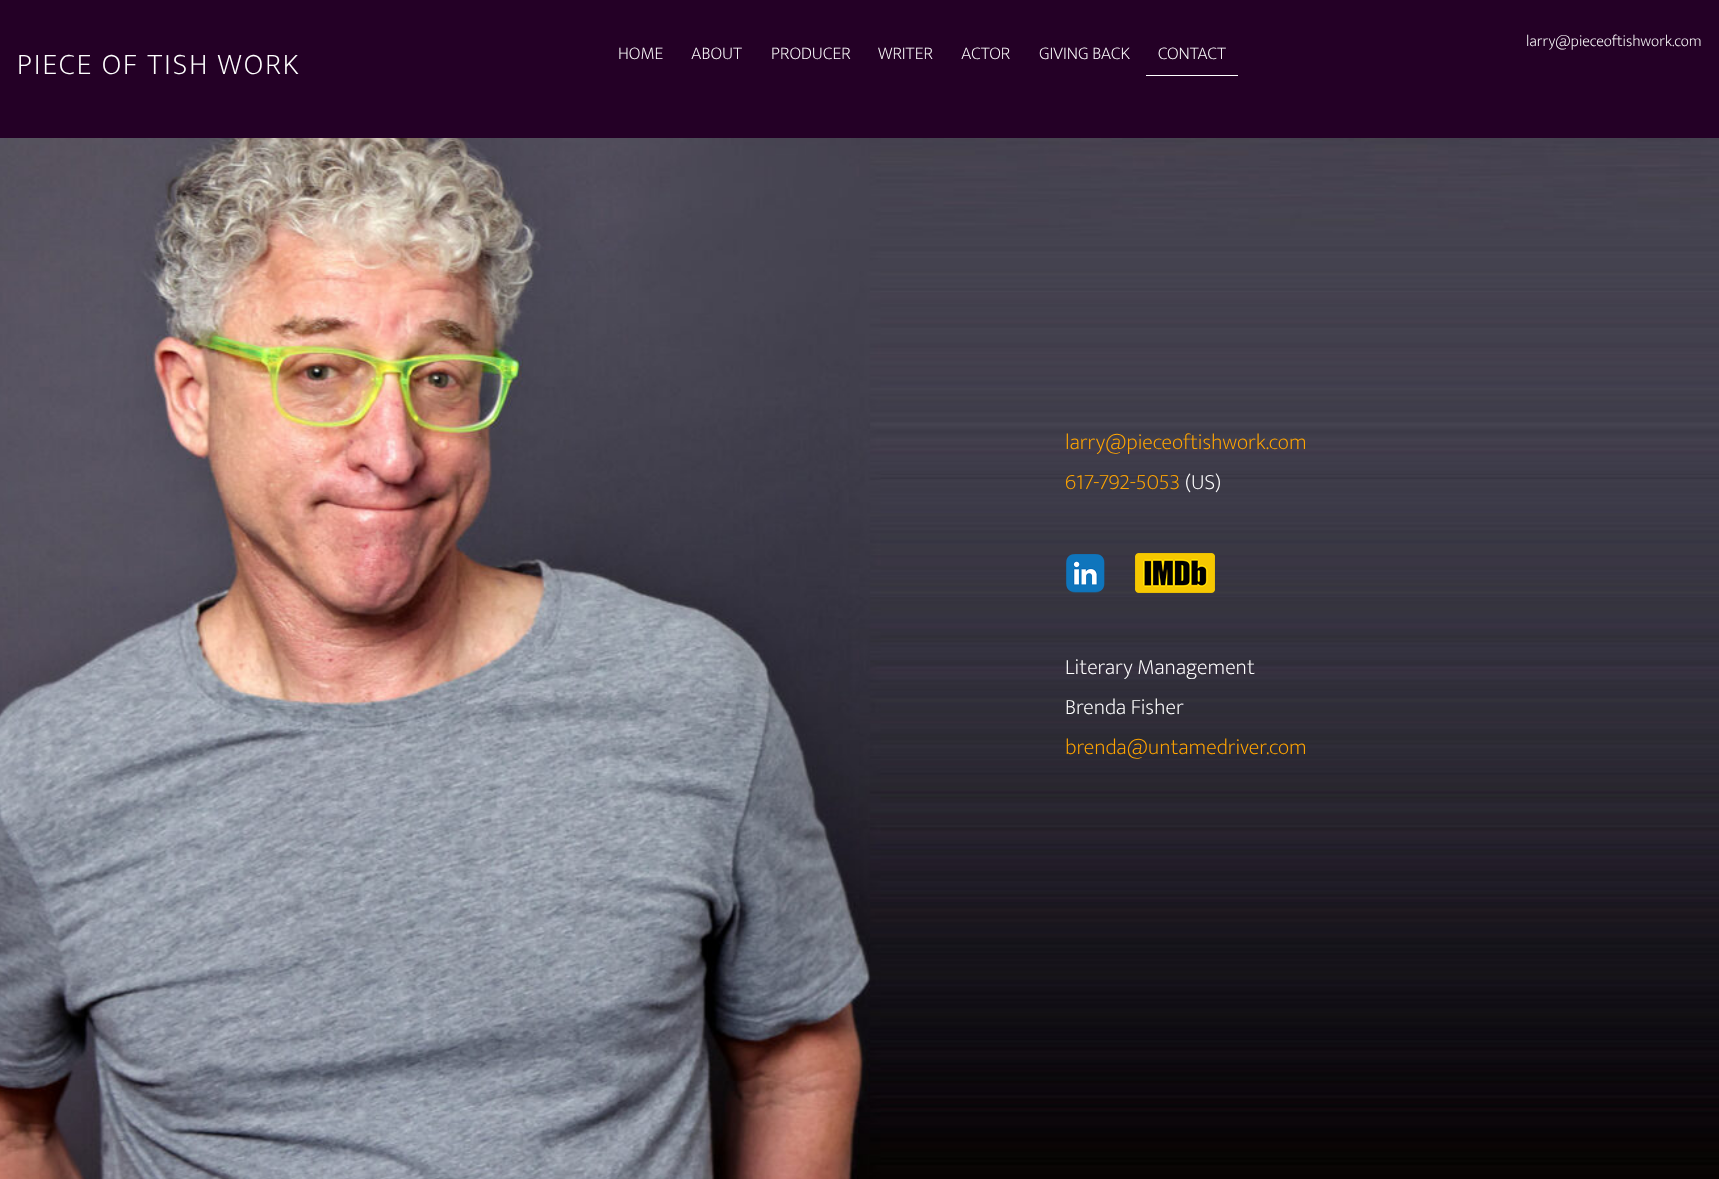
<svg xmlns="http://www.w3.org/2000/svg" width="1719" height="1179">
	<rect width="100%" height="100%" fill="#FFFFFF" />
	<rect x="0" y="0" width="1719" height="138" fill="#240026" />
	<text x="1526" y="46" font-family="Ek Mukta" font-size="16" font-weight="200" fill="#FFFFFF">larry@pieceoftishwork.com</text>
	<text x="17" y="74" font-family="Ek Mukta" font-size="30" font-weight="200" letter-spacing="2" fill="#FFFFFF">PIECE OF TISH WORK</text>
	<g font-family="Ek Mukta" font-size="18" font-weight="200" fill="#FFFFFF">
		<text x="618" y="59">HOME</text>
		<text x="691" y="59">ABOUT</text>
		<text x="771" y="59">PRODUCER</text>
		<text x="878" y="59">WRITER</text>
		<text x="961" y="59">ACTOR</text>
		<text x="1039" y="59">GIVING BACK</text>
	</g>
	<rect x="1146" y="75" width="92" height="1" fill="#FFFFFF" />
	<text x="1158" y="59" font-family="Ek Mukta" font-size="18" font-weight="200" fill="#FFFFFF">CONTACT</text>
	<image x="0" y="138" width="1719" height="1041" href="assets/img1.png" />
	<g font-family="Ek Mukta" font-size="22" font-weight="200" fill="#FFA500">
		<text x="1065" y="449">larry@pieceoftishwork.com</text>
		<text x="1065" y="489">617-792-5053</text>
	</g>
	<text x="1185" y="489" font-family="Ek Mukta" font-size="22" font-weight="200" fill="#FFFFFF">(US)</text>
	<image x="1066" y="554" width="39" height="39" href="assets/img2.png" />
	<image x="1135" y="553" width="80" height="40" href="assets/img3.png" />
	<g font-family="Ek Mukta" font-size="22" font-weight="200" fill="#FFFFFF">
		<text x="1065" y="674">Literary Management</text>
		<text x="1065" y="714">Brenda Fisher</text>
	</g>
	<text x="1065" y="754" font-family="Ek Mukta" font-size="22" font-weight="200" fill="#FFA500">brenda@untamedriver.com</text>
</svg>
